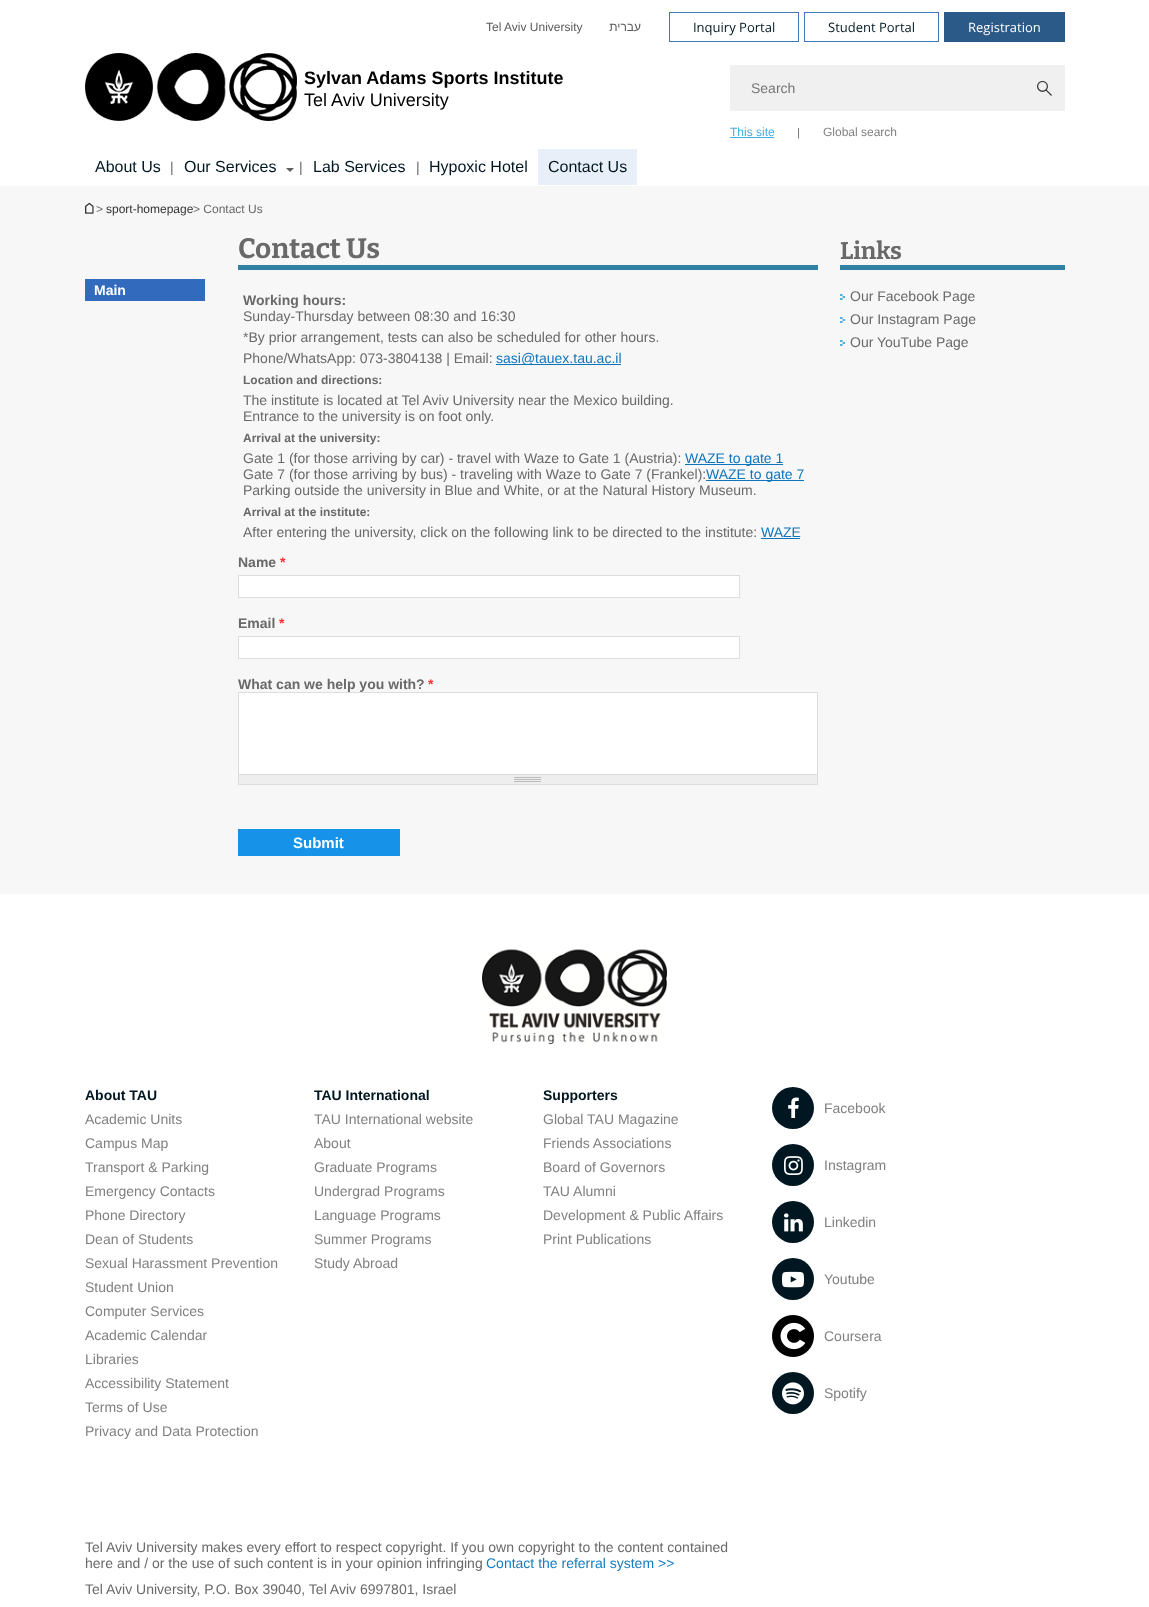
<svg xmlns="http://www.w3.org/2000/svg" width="1149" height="1607">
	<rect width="100%" height="100%" fill="#F7F7F7" />
	<rect x="0" y="0" width="1149" height="186" fill="#FFFFFF" />
	<text x="486" y="31" font-family="Liberation Sans" font-size="12" fill="#595959">Tel Aviv University</text>
	<text x="641" y="31" font-family="Liberation Sans" font-size="12" direction="rtl" fill="#595959">עברית</text>
	<rect x="669.5" y="12.5" width="129" height="29" fill="none" stroke="#3B7BBD" />
	<text x="693" y="32" font-family="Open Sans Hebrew" font-size="13" fill="#001721">Inquiry Portal</text>
	<rect x="804.5" y="12.5" width="134" height="29" fill="none" stroke="#3B7BBD" />
	<text x="828" y="32" font-family="Open Sans Hebrew" font-size="13" fill="#001721">Student Portal</text>
	<rect x="944" y="12" width="121" height="30" fill="#2B5988" />
	<text x="968" y="32" font-family="Open Sans Hebrew" font-size="13" fill="#FFFFFF">Registration</text>
	<image x="85" y="53" width="212" height="68" href="assets/img1.png" />
	<text x="304" y="84" font-family="Liberation Sans" font-size="18" font-weight="700" fill="#000000">Sylvan Adams Sports Institute</text>
	<text x="304" y="106" font-family="Liberation Sans" font-size="18" fill="#000000">Tel Aviv University</text>
	<rect x="730" y="65" width="335" height="46" fill="#F0F0F0" />
	<text x="751" y="93" font-family="Liberation Sans" font-size="14" fill="#757575">Search</text>
	<image x="1037" y="80" width="15" height="16" href="assets/img2.png" />
	<text x="730" y="136" font-family="Liberation Sans" font-size="12" fill="#45ADE6">This site</text>
	<rect x="730" y="137" width="44" height="1" fill="#45ADE6" />
	<text x="797" y="136" font-family="Liberation Sans" font-size="11" font-style="italic" fill="#696969">|</text>
	<text x="823" y="136" font-family="Liberation Sans" font-size="12" fill="#808080">Global search</text>
	<text x="95" y="172" font-family="Liberation Sans" font-size="16" fill="#001721">About Us</text>
	<text x="170" y="172" font-family="Liberation Sans" font-size="14" fill="#696969">|</text>
	<text x="184" y="172" font-family="Liberation Sans" font-size="16" fill="#001721">Our Services</text>
	<path d="M286 168H294L290 172Z" fill="#606060" />
	<text x="299" y="172" font-family="Liberation Sans" font-size="14" fill="#696969">|</text>
	<text x="313" y="172" font-family="Liberation Sans" font-size="16" fill="#001721">Lab Services</text>
	<text x="416" y="172" font-family="Liberation Sans" font-size="14" fill="#696969">|</text>
	<text x="429" y="172" font-family="Liberation Sans" font-size="16" fill="#001721">Hypoxic Hotel</text>
	<rect x="538" y="149" width="99" height="36" fill="#E9EFF9" />
	<text x="548" y="172" font-family="Liberation Sans" font-size="16" fill="#001721">Contact Us</text>
	<image x="85" y="202" width="9" height="12" href="assets/img3.png" />
	<text x="96" y="213" font-family="Liberation Sans" font-size="12" fill="#696969">&gt;</text>
	<text x="106" y="213" font-family="Liberation Sans" font-size="12" fill="#333333">sport-homepage</text>
	<text x="193" y="213" font-family="Liberation Sans" font-size="12" fill="#696969">&gt; Contact Us</text>
	<rect x="85" y="279" width="120" height="22" fill="#326ABD" />
	<text x="94" y="295" font-family="Liberation Sans" font-size="14" font-weight="700" fill="#FFFFFF">Main</text>
	<text x="238" y="258" font-family="Bitter" font-size="28" font-weight="700" fill="#696969">Contact Us</text>
	<rect x="238" y="265" width="580" height="5" fill="#3181A2" />
	<text x="243" y="305" font-family="Liberation Sans" font-size="14" font-weight="700" fill="#696969">Working hours:</text>
	<g font-family="Liberation Sans" font-size="14" fill="#696969">
		<text x="243" y="321">Sunday-Thursday between 08:30 and 16:30</text>
		<text x="243" y="342">*By prior arrangement, tests can also be scheduled for other hours.</text>
		<text x="243" y="363">Phone/WhatsApp: 073-3804138 | Email:</text>
	</g>
	<rect x="496" y="364" width="125" height="1" fill="#0E74BC" />
	<text x="496" y="363" font-family="Liberation Sans" font-size="14" fill="#0E74BC">sasi@tauex.tau.ac.il</text>
	<text x="243" y="384" font-family="Liberation Sans" font-size="12" font-weight="700" fill="#696969">Location and directions:</text>
	<g font-family="Liberation Sans" font-size="14" fill="#696969">
		<text x="243" y="405">The institute is located at Tel Aviv University near the Mexico building.</text>
		<text x="243" y="421">Entrance to the university is on foot only.</text>
	</g>
	<text x="243" y="442" font-family="Liberation Sans" font-size="12" font-weight="700" fill="#696969">Arrival at the university:</text>
	<text x="243" y="463" font-family="Liberation Sans" font-size="14" fill="#696969">Gate 1 (for those arriving by car) - travel with Waze to Gate 1 (Austria):</text>
	<rect x="685" y="464" width="98" height="1" fill="#0E74BC" />
	<text x="685" y="463" font-family="Liberation Sans" font-size="14" fill="#0E74BC">WAZE to gate 1</text>
	<text x="243" y="479" font-family="Liberation Sans" font-size="14" fill="#696969">Gate 7 (for those arriving by bus) - traveling with Waze to Gate 7 (Frankel):</text>
	<rect x="706" y="480" width="98" height="1" fill="#0E74BC" />
	<text x="706" y="479" font-family="Liberation Sans" font-size="14" fill="#0E74BC">WAZE to gate 7</text>
	<text x="243" y="495" font-family="Liberation Sans" font-size="14" fill="#696969">Parking outside the university in Blue and White, or at the Natural History Museum.</text>
	<text x="243" y="516" font-family="Liberation Sans" font-size="12" font-weight="700" fill="#696969">Arrival at the institute:</text>
	<text x="243" y="537" font-family="Liberation Sans" font-size="14" fill="#696969">After entering the university, click on the following link to be directed to the institute:</text>
	<text x="761" y="537" font-family="Liberation Sans" font-size="14" fill="#0E74BC">WAZE</text>
	<rect x="761" y="538" width="39" height="1" fill="#0E74BC" />
	<text x="238" y="567" font-family="Liberation Sans" font-size="14" font-weight="700" fill="#696969">Name</text>
	<text x="280" y="567" font-family="Liberation Sans" font-size="14" font-weight="700" fill="#FF2D2E">*</text>
	<rect x="238.5" y="575.5" width="501" height="22" fill="#FFFFFF" stroke="#DDDDDD" />
	<text x="238" y="628" font-family="Liberation Sans" font-size="14" font-weight="700" fill="#696969">Email</text>
	<text x="279" y="628" font-family="Liberation Sans" font-size="14" font-weight="700" fill="#FF2D2E">*</text>
	<rect x="238.5" y="636.5" width="501" height="22" fill="#FFFFFF" stroke="#DDDDDD" />
	<text x="238" y="689" font-family="Liberation Sans" font-size="14" font-weight="700" fill="#696969">What can we help you with?</text>
	<text x="428" y="689" font-family="Liberation Sans" font-size="14" font-weight="700" fill="#FF2D2E">*</text>
	<rect x="238.5" y="692.5" width="579" height="82" fill="#FFFFFF" stroke="#DDDDDD" />
	<rect x="239" y="775" width="578" height="9" fill="#EEEEEE" />
	<image x="514" y="777" width="27" height="5" href="assets/img4.png" />
	<rect x="817" y="775" width="1" height="10" fill="#DDDDDD" />
	<rect x="238" y="784" width="580" height="1" fill="#DDDDDD" />
	<rect x="238" y="775" width="1" height="10" fill="#DDDDDD" />
	<rect x="238" y="829" width="162" height="27" fill="#1692E8" />
	<text x="293" y="848" font-family="Liberation Sans" font-size="15" font-weight="700" fill="#FFFFFF">Submit</text>
	<text x="840" y="259" font-family="Bitter" font-size="24" font-weight="700" fill="#696969">Links</text>
	<rect x="840" y="265" width="225" height="5" fill="#3181A2" />
	<image x="840" y="294" width="5" height="6" href="assets/img5.png" />
	<text x="850" y="301" font-family="Liberation Sans" font-size="14" fill="#696969">Our Facebook Page</text>
	<image x="840" y="317" width="5" height="6" href="assets/img5.png" />
	<text x="850" y="324" font-family="Liberation Sans" font-size="14" fill="#696969">Our Instagram Page</text>
	<image x="840" y="340" width="5" height="6" href="assets/img5.png" />
	<text x="850" y="347" font-family="Liberation Sans" font-size="14" fill="#696969">Our YouTube Page</text>
	<rect x="0" y="894" width="1149" height="713" fill="#FFFFFF" />
	<image x="482" y="949" width="185" height="95" href="assets/img6.png" />
	<text x="85" y="1100" font-family="Liberation Sans" font-size="14" font-weight="700" fill="#001721">About TAU</text>
	<g font-family="Liberation Sans" font-size="14" fill="#808080">
		<text x="85" y="1124">Academic Units</text>
		<text x="85" y="1148">Campus Map</text>
		<text x="85" y="1172">Transport &amp; Parking</text>
		<text x="85" y="1196">Emergency Contacts</text>
		<text x="85" y="1220">Phone Directory</text>
		<text x="85" y="1244">Dean of Students</text>
		<text x="85" y="1268">Sexual Harassment Prevention</text>
		<text x="85" y="1292">Student Union</text>
		<text x="85" y="1316">Computer Services</text>
		<text x="85" y="1340">Academic Calendar</text>
		<text x="85" y="1364">Libraries</text>
		<text x="85" y="1388">Accessibility Statement</text>
		<text x="85" y="1412">Terms of Use</text>
		<text x="85" y="1436">Privacy and Data Protection</text>
	</g>
	<text x="314" y="1100" font-family="Liberation Sans" font-size="14" font-weight="700" fill="#001721">TAU International</text>
	<g font-family="Liberation Sans" font-size="14" fill="#808080">
		<text x="314" y="1124">TAU International website</text>
		<text x="314" y="1148">About</text>
		<text x="314" y="1172">Graduate Programs</text>
		<text x="314" y="1196">Undergrad Programs</text>
		<text x="314" y="1220">Language Programs</text>
		<text x="314" y="1244">Summer Programs</text>
		<text x="314" y="1268">Study Abroad</text>
	</g>
	<text x="543" y="1100" font-family="Liberation Sans" font-size="14" font-weight="700" fill="#001721">Supporters</text>
	<g font-family="Liberation Sans" font-size="14" fill="#808080">
		<text x="543" y="1124">Global TAU Magazine</text>
		<text x="543" y="1148">Friends Associations</text>
		<text x="543" y="1172">Board of Governors</text>
		<text x="543" y="1196">TAU Alumni</text>
		<text x="543" y="1220">Development &amp; Public Affairs</text>
		<text x="543" y="1244">Print Publications</text>
	</g>
	<circle cx="793" cy="1108" r="21" fill="#001721" />
	<image x="788" y="1097" width="11" height="21" href="assets/img7.png" />
	<text x="824" y="1113" font-family="Liberation Sans" font-size="14" fill="#808080">Facebook</text>
	<circle cx="793" cy="1165" r="21" fill="#001721" />
	<image x="784" y="1156" width="19" height="19" href="assets/img8.png" />
	<text x="824" y="1170" font-family="Liberation Sans" font-size="14" fill="#808080">Instagram</text>
	<circle cx="793" cy="1222" r="21" fill="#001721" />
	<image x="784" y="1213" width="19" height="19" href="assets/img9.png" />
	<text x="824" y="1227" font-family="Liberation Sans" font-size="14" fill="#808080">Linkedin</text>
	<circle cx="793" cy="1279" r="21" fill="#001721" />
	<image x="782" y="1271" width="22" height="17" href="assets/img10.png" />
	<text x="824" y="1284" font-family="Liberation Sans" font-size="14" fill="#808080">Youtube</text>
	<image x="772" y="1315" width="42" height="42" href="assets/img11.png" />
	<text x="824" y="1341" font-family="Liberation Sans" font-size="14" fill="#808080">Coursera</text>
	<circle cx="793" cy="1393" r="21" fill="#001721" />
	<image x="782" y="1382" width="22" height="23" href="assets/img12.png" />
	<text x="824" y="1398" font-family="Liberation Sans" font-size="14" fill="#808080">Spotify</text>
	<g font-family="Liberation Sans" font-size="14" fill="#696969">
		<text x="85" y="1552">Tel Aviv University makes every effort to respect copyright. If you own copyright to the content contained</text>
		<text x="85" y="1568">here and / or the use of such content is in your opinion infringing</text>
	</g>
	<text x="486" y="1568" font-family="Liberation Sans" font-size="14" fill="#147CC2">Contact the referral system &gt;&gt;</text>
	<text x="85" y="1594" font-family="Liberation Sans" font-size="14" fill="#696969">Tel Aviv University, P.O. Box 39040, Tel Aviv 6997801, Israel</text>
</svg>
